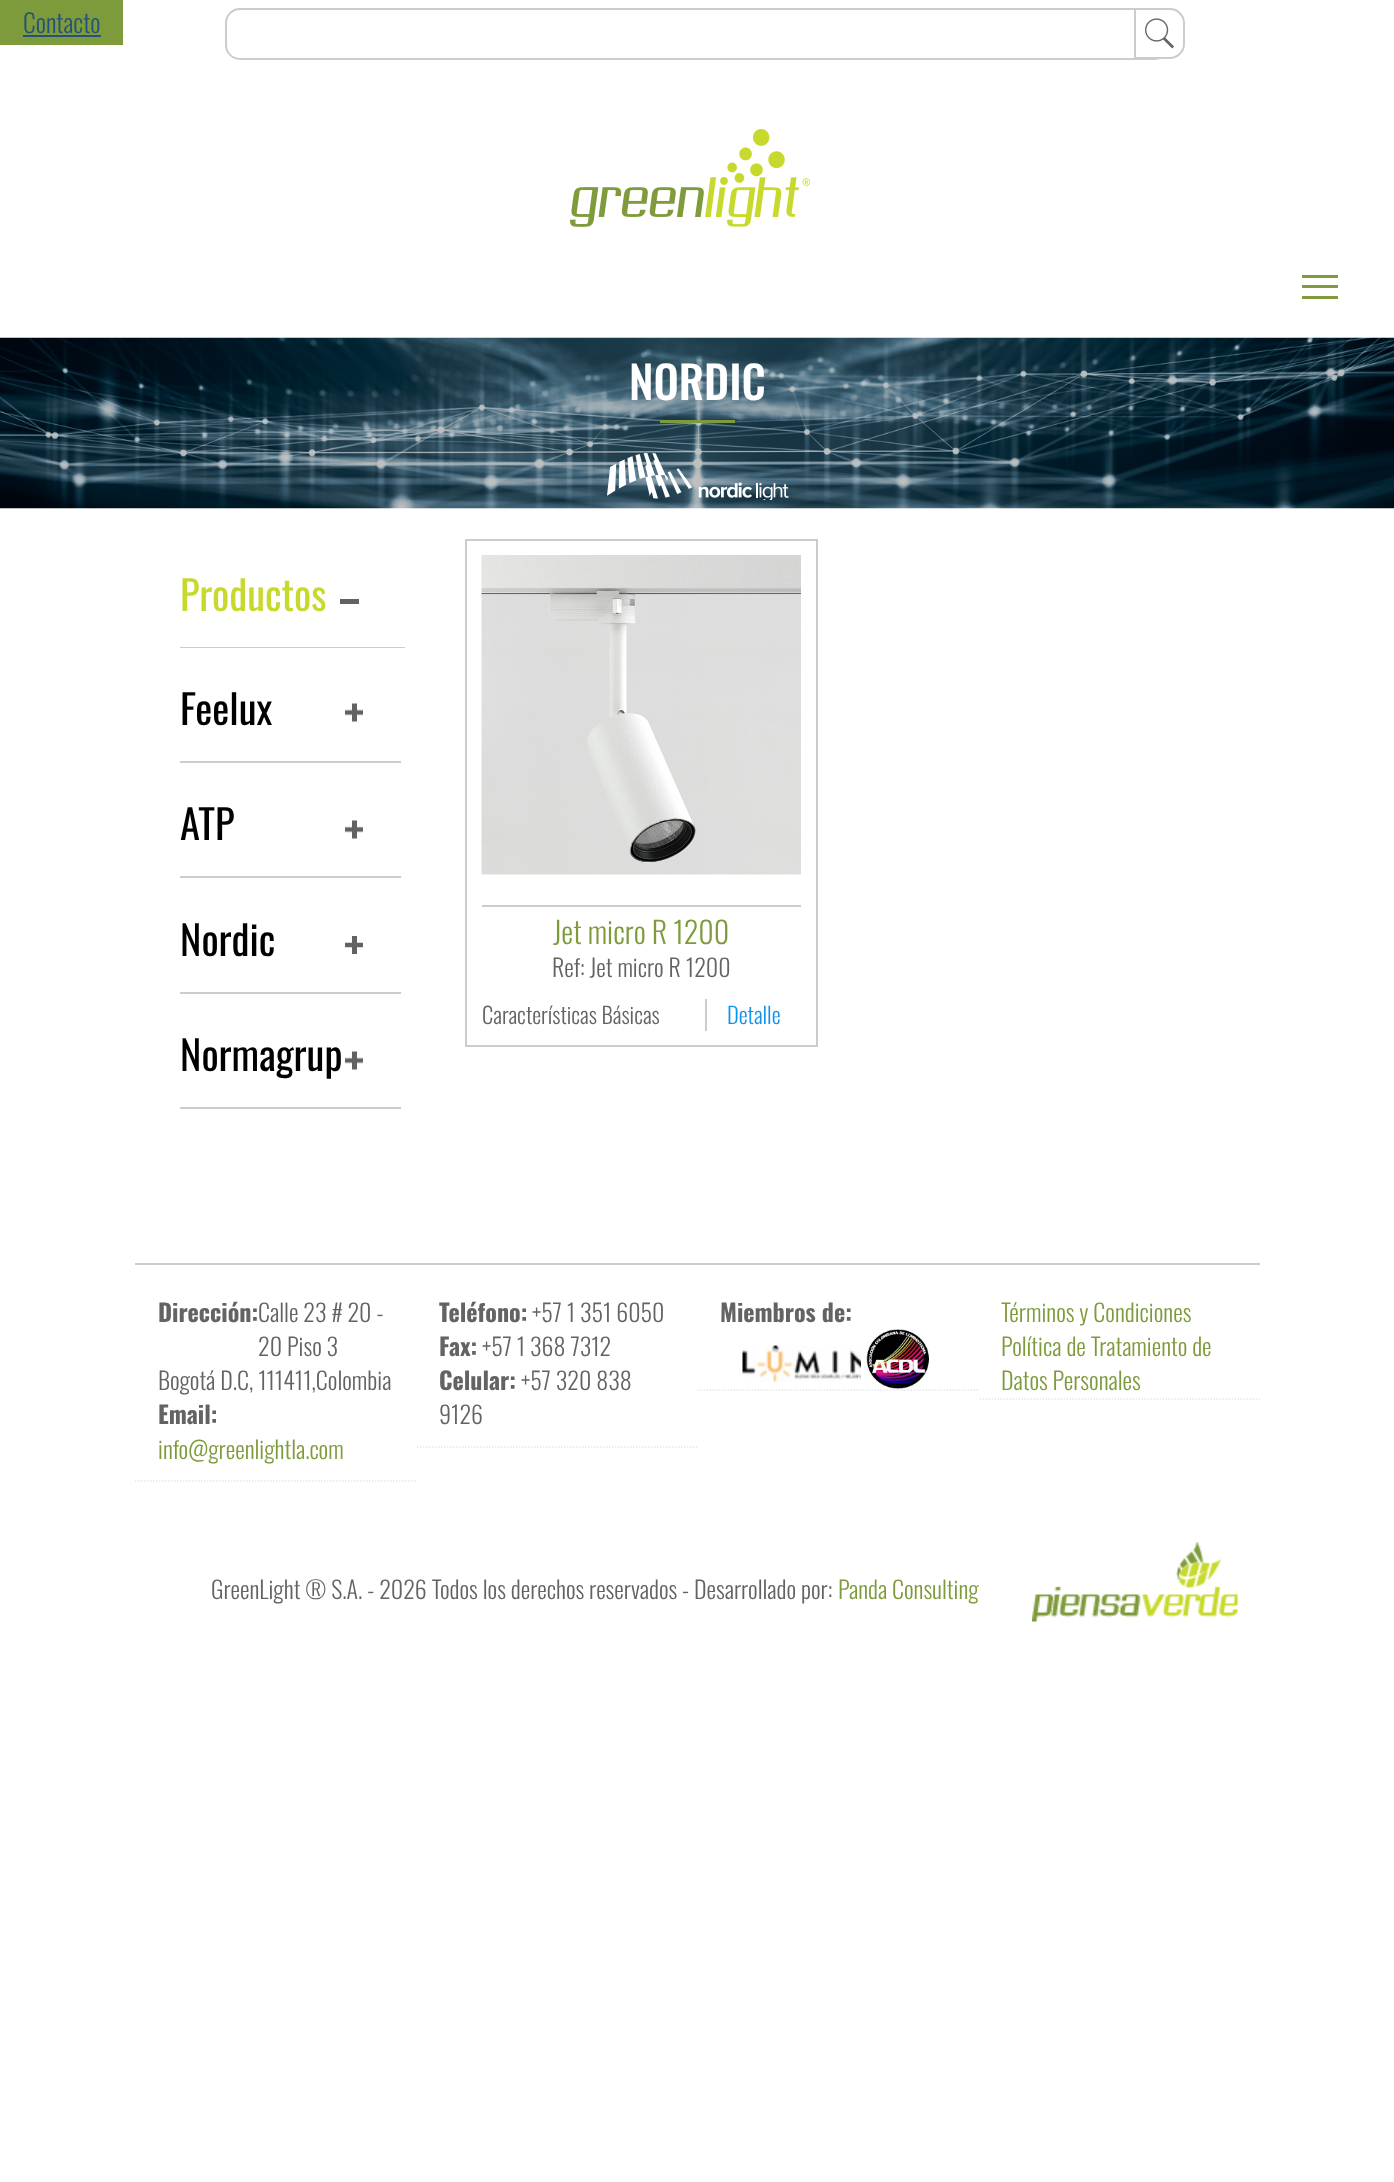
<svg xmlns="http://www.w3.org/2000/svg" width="1394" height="2182">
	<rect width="100%" height="100%" fill="#FFFFFF" />
	<rect x="0" y="0" width="123" height="45" fill="#7E9B3B" />
	<text x="23" y="33" font-family="Oswald" font-size="25.5" font-weight="300" fill="#23527C">Contacto</text>
	<rect x="23" y="35" width="78" height="2" fill="#23527C" />
	<image x="570" y="129" width="240" height="98" href="assets/img1.png" />
	<rect x="226" y="9" width="943" height="50" rx="14" fill="none" stroke="#CCCCCC" stroke-width="2" />
	<path d="M1135 9H1170C1177.5 9 1184 15.5 1184 23V44C1184 51.5 1177.5 58 1170 58H1135Z" fill="#FFFFFF" stroke="#CCCCCC" stroke-width="2" />
	<image x="1145" y="18" width="29" height="31" href="assets/img2.png" />
	<rect x="1302" y="285" width="36" height="3" fill="#7F9B3C" />
	<rect x="1302" y="275" width="36" height="3" fill="#7F9B3C" />
	<rect x="1302" y="296" width="36" height="3" fill="#7F9B3C" />
	<image x="0" y="337" width="1394" height="172" href="assets/img3.png" />
	<text x="629" y="400" font-family="Oswald" font-size="45" font-weight="500" fill="#FFFFFF">NORDIC</text>
	<rect x="660" y="420" width="75" height="3" fill="#7E9B3B" />
	<image x="607" y="453" width="182" height="47" href="assets/img4.png" />
	<rect x="180" y="647" width="225" height="1" fill="#CCCCCC" />
	<text x="180" y="611" font-family="Oswald" font-size="40.5" fill="#C8D92D">Productos</text>
	<rect x="340" y="599" width="19" height="5" fill="#626262" />
	<rect x="180" y="761" width="221" height="2" fill="#CCCCCC" />
	<text x="180" y="725" font-family="Oswald" font-size="40.5" fill="#000000">Feelux</text>
	<image x="345" y="703" width="18" height="19" href="assets/img5.png" />
	<rect x="180" y="876" width="221" height="2" fill="#CCCCCC" />
	<text x="180" y="840" font-family="Oswald" font-size="40.5" fill="#000000">ATP</text>
	<image x="345" y="820" width="18" height="19" href="assets/img5.png" />
	<rect x="180" y="992" width="221" height="2" fill="#CCCCCC" />
	<text x="180" y="956" font-family="Oswald" font-size="40.5" fill="#000000">Nordic</text>
	<image x="345" y="936" width="18" height="18" href="assets/img6.png" />
	<rect x="180" y="1107" width="221" height="2" fill="#CCCCCC" />
	<text x="180" y="1071" font-family="Oswald" font-size="40.5" fill="#000000">Normagrup</text>
	<image x="345" y="1051" width="18" height="19" href="assets/img5.png" />
	<rect x="466" y="540" width="351" height="506" fill="none" stroke="#CCCCCC" stroke-width="2" />
	<image x="481" y="555" width="320" height="320" href="assets/img7.png" />
	<rect x="482" y="905" width="319" height="2" fill="#CCCCCC" />
	<text x="553" y="944" font-family="Oswald" font-size="30" font-weight="300" fill="#7E9B3B">Jet micro R 1200</text>
	<text x="552" y="977" font-family="Oswald" font-size="24" font-weight="300" fill="#636363">Ref: Jet micro R 1200</text>
	<text x="482" y="1024" font-family="Oswald" font-size="22.5" font-weight="300" fill="#636363">Características Básicas</text>
	<rect x="705" y="999" width="2" height="32" fill="#CCCCCC" />
	<text x="727" y="1024" font-family="Oswald" font-size="22.5" font-weight="300" fill="#0F93ED">Detalle</text>
	<rect x="135" y="1263" width="1125" height="2" fill="#CCCCCC" />
	<path d="M135 1481H417" fill="none" stroke="#E9E7E7" stroke-width="1.5" stroke-dasharray="1.5 1.5" />
	<text x="158" y="1322" font-family="Oswald" font-size="24" font-weight="700" fill="#636363">Dirección:</text>
	<g font-family="Oswald" font-size="24" font-weight="300" fill="#636363">
		<text x="258" y="1322">Calle 23 # 20 -</text>
		<text x="258" y="1356">20 Piso 3</text>
		<text x="158" y="1390">Bogotá D.C, 111411,Colombia</text>
	</g>
	<text x="158" y="1424" font-family="Oswald" font-size="24" font-weight="700" fill="#636363">Email:</text>
	<text x="158" y="1459" font-family="Oswald" font-size="24" font-weight="300" fill="#7E9B3B">info@greenlightla.com</text>
	<path d="M417 1447H697.5" fill="none" stroke="#E9E7E7" stroke-width="1.5" stroke-dasharray="1.5 1.5" />
	<text x="439" y="1322" font-family="Oswald" font-size="24" font-weight="700" fill="#636363">Teléfono:</text>
	<text x="532" y="1322" font-family="Oswald" font-size="24" font-weight="300" fill="#636363">+57 1 351 6050</text>
	<text x="439" y="1356" font-family="Oswald" font-size="24" font-weight="700" fill="#636363">Fax:</text>
	<text x="482" y="1356" font-family="Oswald" font-size="24" font-weight="300" fill="#636363">+57 1 368 7312</text>
	<text x="439" y="1390" font-family="Oswald" font-size="24" font-weight="700" fill="#636363">Celular:</text>
	<g font-family="Oswald" font-size="24" font-weight="300" fill="#636363">
		<text x="521" y="1390">+57 320 838</text>
		<text x="439" y="1424">9126</text>
	</g>
	<path d="M697.5 1390H979.5" fill="none" stroke="#E9E7E7" stroke-width="1.5" stroke-dasharray="1.5 1.5" />
	<text x="720" y="1322" font-family="Oswald" font-size="24" font-weight="700" fill="#636363">Miembros de:</text>
	<image x="742" y="1345" width="119" height="37" href="assets/img8.png" />
	<image x="861" y="1329" width="68" height="60" href="assets/img9.png" />
	<path d="M979.5 1399H1260" fill="none" stroke="#E9E7E7" stroke-width="1.5" stroke-dasharray="1.5 1.5" />
	<g font-family="Oswald" font-size="24" font-weight="300" fill="#7E9B3B">
		<text x="1001" y="1322">Términos y Condiciones</text>
		<text x="1001" y="1356">Política de Tratamiento de</text>
		<text x="1001" y="1390">Datos Personales</text>
	</g>
	<text x="211" y="1599" font-family="Oswald" font-size="24" font-weight="300" fill="#636363">GreenLight ® S.A. - 2026 Todos los derechos reservados - Desarrollado por:</text>
	<text x="838" y="1599" font-family="Oswald" font-size="24" font-weight="300" fill="#7E9B3B">Panda Consulting</text>
	<image x="1032" y="1542" width="206" height="80" href="assets/img10.png" />
</svg>
